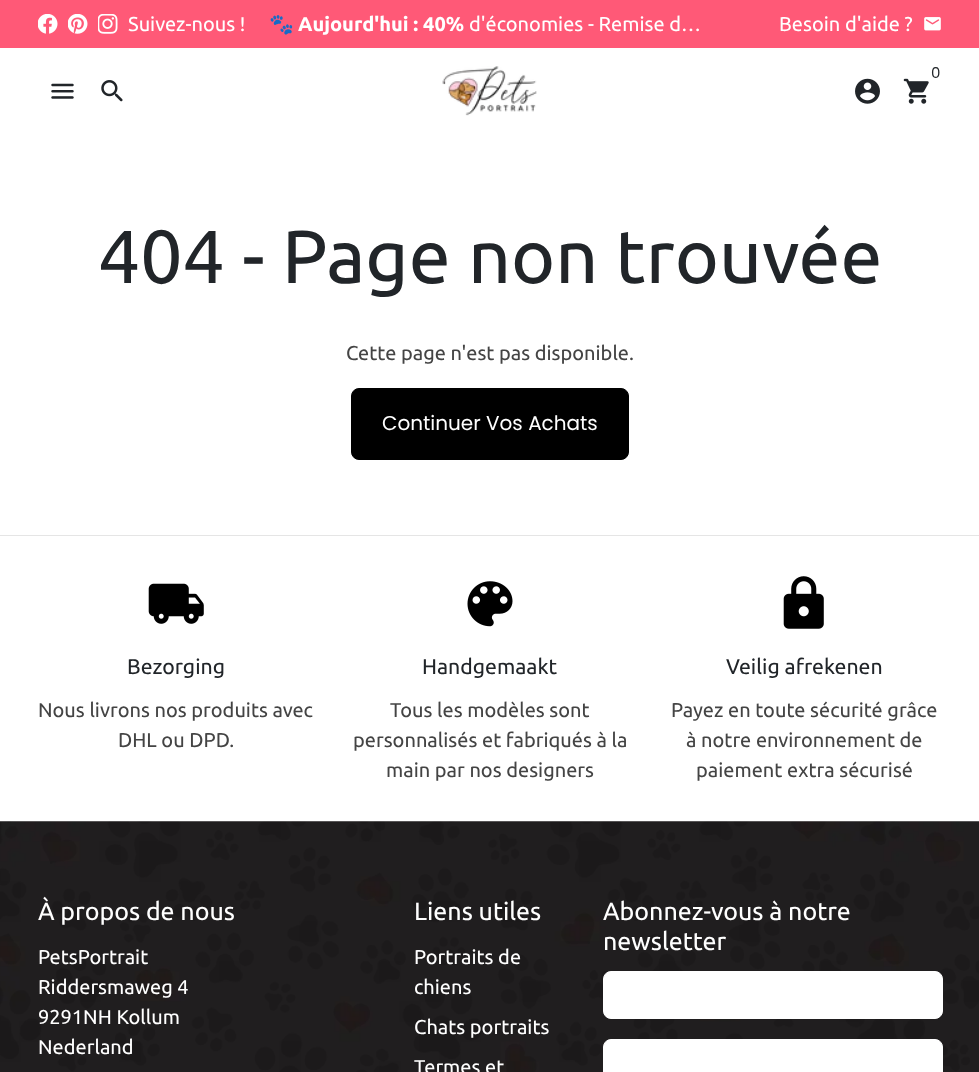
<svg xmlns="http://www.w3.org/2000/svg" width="979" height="1072">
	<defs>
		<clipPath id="clip1"><rect x="269" y="9" width="442" height="30" /></clipPath>
	</defs>
	<rect width="100%" height="100%" fill="#FFFFFF" />
	<rect x="0" y="0" width="979" height="48" fill="#FF5977" />
	<image x="38" y="14" width="20" height="20" href="assets/img1.png" />
	<image x="68" y="14" width="20" height="20" href="assets/img2.png" />
	<image x="98" y="14" width="20" height="20" href="assets/img3.png" />
	<text x="128" y="31" font-family="Ubuntu" font-size="20" fill="#FFFFFF">Suivez-nous !</text>
	<g clip-path="url(#clip1)">
		<text x="269" y="31" font-family="Noto Color Emoji" font-size="20" font-weight="700" fill="#FFFFFF">🐾</text>
	</g>
	<text x="298" y="31" font-family="Ubuntu" font-size="20" font-weight="700" fill="#FFFFFF">Aujourd'hui : 40%</text>
	<g font-family="Ubuntu" font-size="20" fill="#FFFFFF">
		<text x="469" y="31">d'économies - Remise d…</text>
		<text x="779" y="31">Besoin d'aide ?</text>
	</g>
	<image x="924" y="17" width="17" height="14" href="assets/img4.png" />
	<image x="442" y="66" width="95" height="50" href="assets/img5.png" />
	<text x="931" y="78" font-family="Poppins" font-size="15" fill="#212529">0</text>
	<image x="903" y="78" width="26" height="26" href="assets/img6.png" />
	<image x="855" y="78" width="25" height="26" href="assets/img7.png" />
	<image x="51" y="83" width="23" height="16" href="assets/img8.png" />
	<image x="101" y="80" width="22" height="22" href="assets/img9.png" />
	<text x="98" y="283" font-family="Ubuntu" font-size="75" fill="#212529">404 - Page non trouvée</text>
	<text x="346" y="360" font-family="Ubuntu" font-size="20" fill="#444444">Cette page n'est pas disponible.</text>
	<rect x="351.5" y="388.5" width="277" height="71" rx="7.5" fill="#000000" stroke="#000000" />
	<text x="382" y="430" font-family="Poppins" font-size="20" fill="#FFFFFF">Continuer Vos Achats</text>
	<rect x="0" y="535" width="979" height="1" fill="#E5E5E5" />
	<image x="148" y="583" width="56" height="41" href="assets/img10.png" />
	<text x="127" y="674" font-family="Ubuntu" font-size="21.25" fill="#212529">Bezorging</text>
	<g font-family="Ubuntu" font-size="20" fill="#444444">
		<text x="38" y="717">Nous livrons nos produits avec</text>
		<text x="118" y="747">DHL ou DPD.</text>
	</g>
	<image x="467" y="581" width="46" height="46" href="assets/img11.png" />
	<text x="422" y="674" font-family="Ubuntu" font-size="21.25" fill="#212529">Handgemaakt</text>
	<g font-family="Ubuntu" font-size="20" fill="#444444">
		<text x="390" y="717">Tous les modèles sont</text>
		<text x="353" y="747">personnalisés et fabriqués à la</text>
		<text x="386" y="777">main par nos designers</text>
	</g>
	<image x="783" y="576" width="41" height="53" href="assets/img12.png" />
	<text x="726" y="674" font-family="Ubuntu" font-size="21.25" fill="#212529">Veilig afrekenen</text>
	<g font-family="Ubuntu" font-size="20" fill="#444444">
		<text x="671" y="717">Payez en toute sécurité grâce</text>
		<text x="686" y="747">à notre environnement de</text>
		<text x="696" y="777">paiement extra sécurisé</text>
	</g>
	<image x="0" y="821" width="979" height="251" href="assets/img13.png" />
	<text x="38" y="920" font-family="Ubuntu" font-size="25" fill="#FFFFFF">À propos de nous</text>
	<g font-family="Ubuntu" font-size="20" fill="#FFFFFF">
		<text x="38" y="964">PetsPortrait</text>
		<text x="38" y="994">Riddersmaweg 4</text>
		<text x="38" y="1024">9291NH Kollum</text>
		<text x="38" y="1054">Nederland</text>
	</g>
	<text x="414" y="920" font-family="Ubuntu" font-size="25" fill="#FFFFFF">Liens utiles</text>
	<g font-family="Ubuntu" font-size="20" fill="#FFFFFF">
		<text x="414" y="964">Portraits de</text>
		<text x="414" y="994">chiens</text>
		<text x="414" y="1034">Chats portraits</text>
		<text x="414" y="1074">Termes et</text>
	</g>
	<g font-family="Ubuntu" font-size="25" fill="#FFFFFF">
		<text x="603" y="920">Abonnez-vous à notre</text>
		<text x="603" y="950">newsletter</text>
	</g>
	<rect x="603.5" y="971.5" width="339" height="47" rx="7.5" fill="#FFFFFF" stroke="#FFFFFF" />
	<rect x="603.5" y="1039.5" width="339" height="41" rx="7.5" fill="#FFFFFF" stroke="#FFFFFF" />
</svg>
